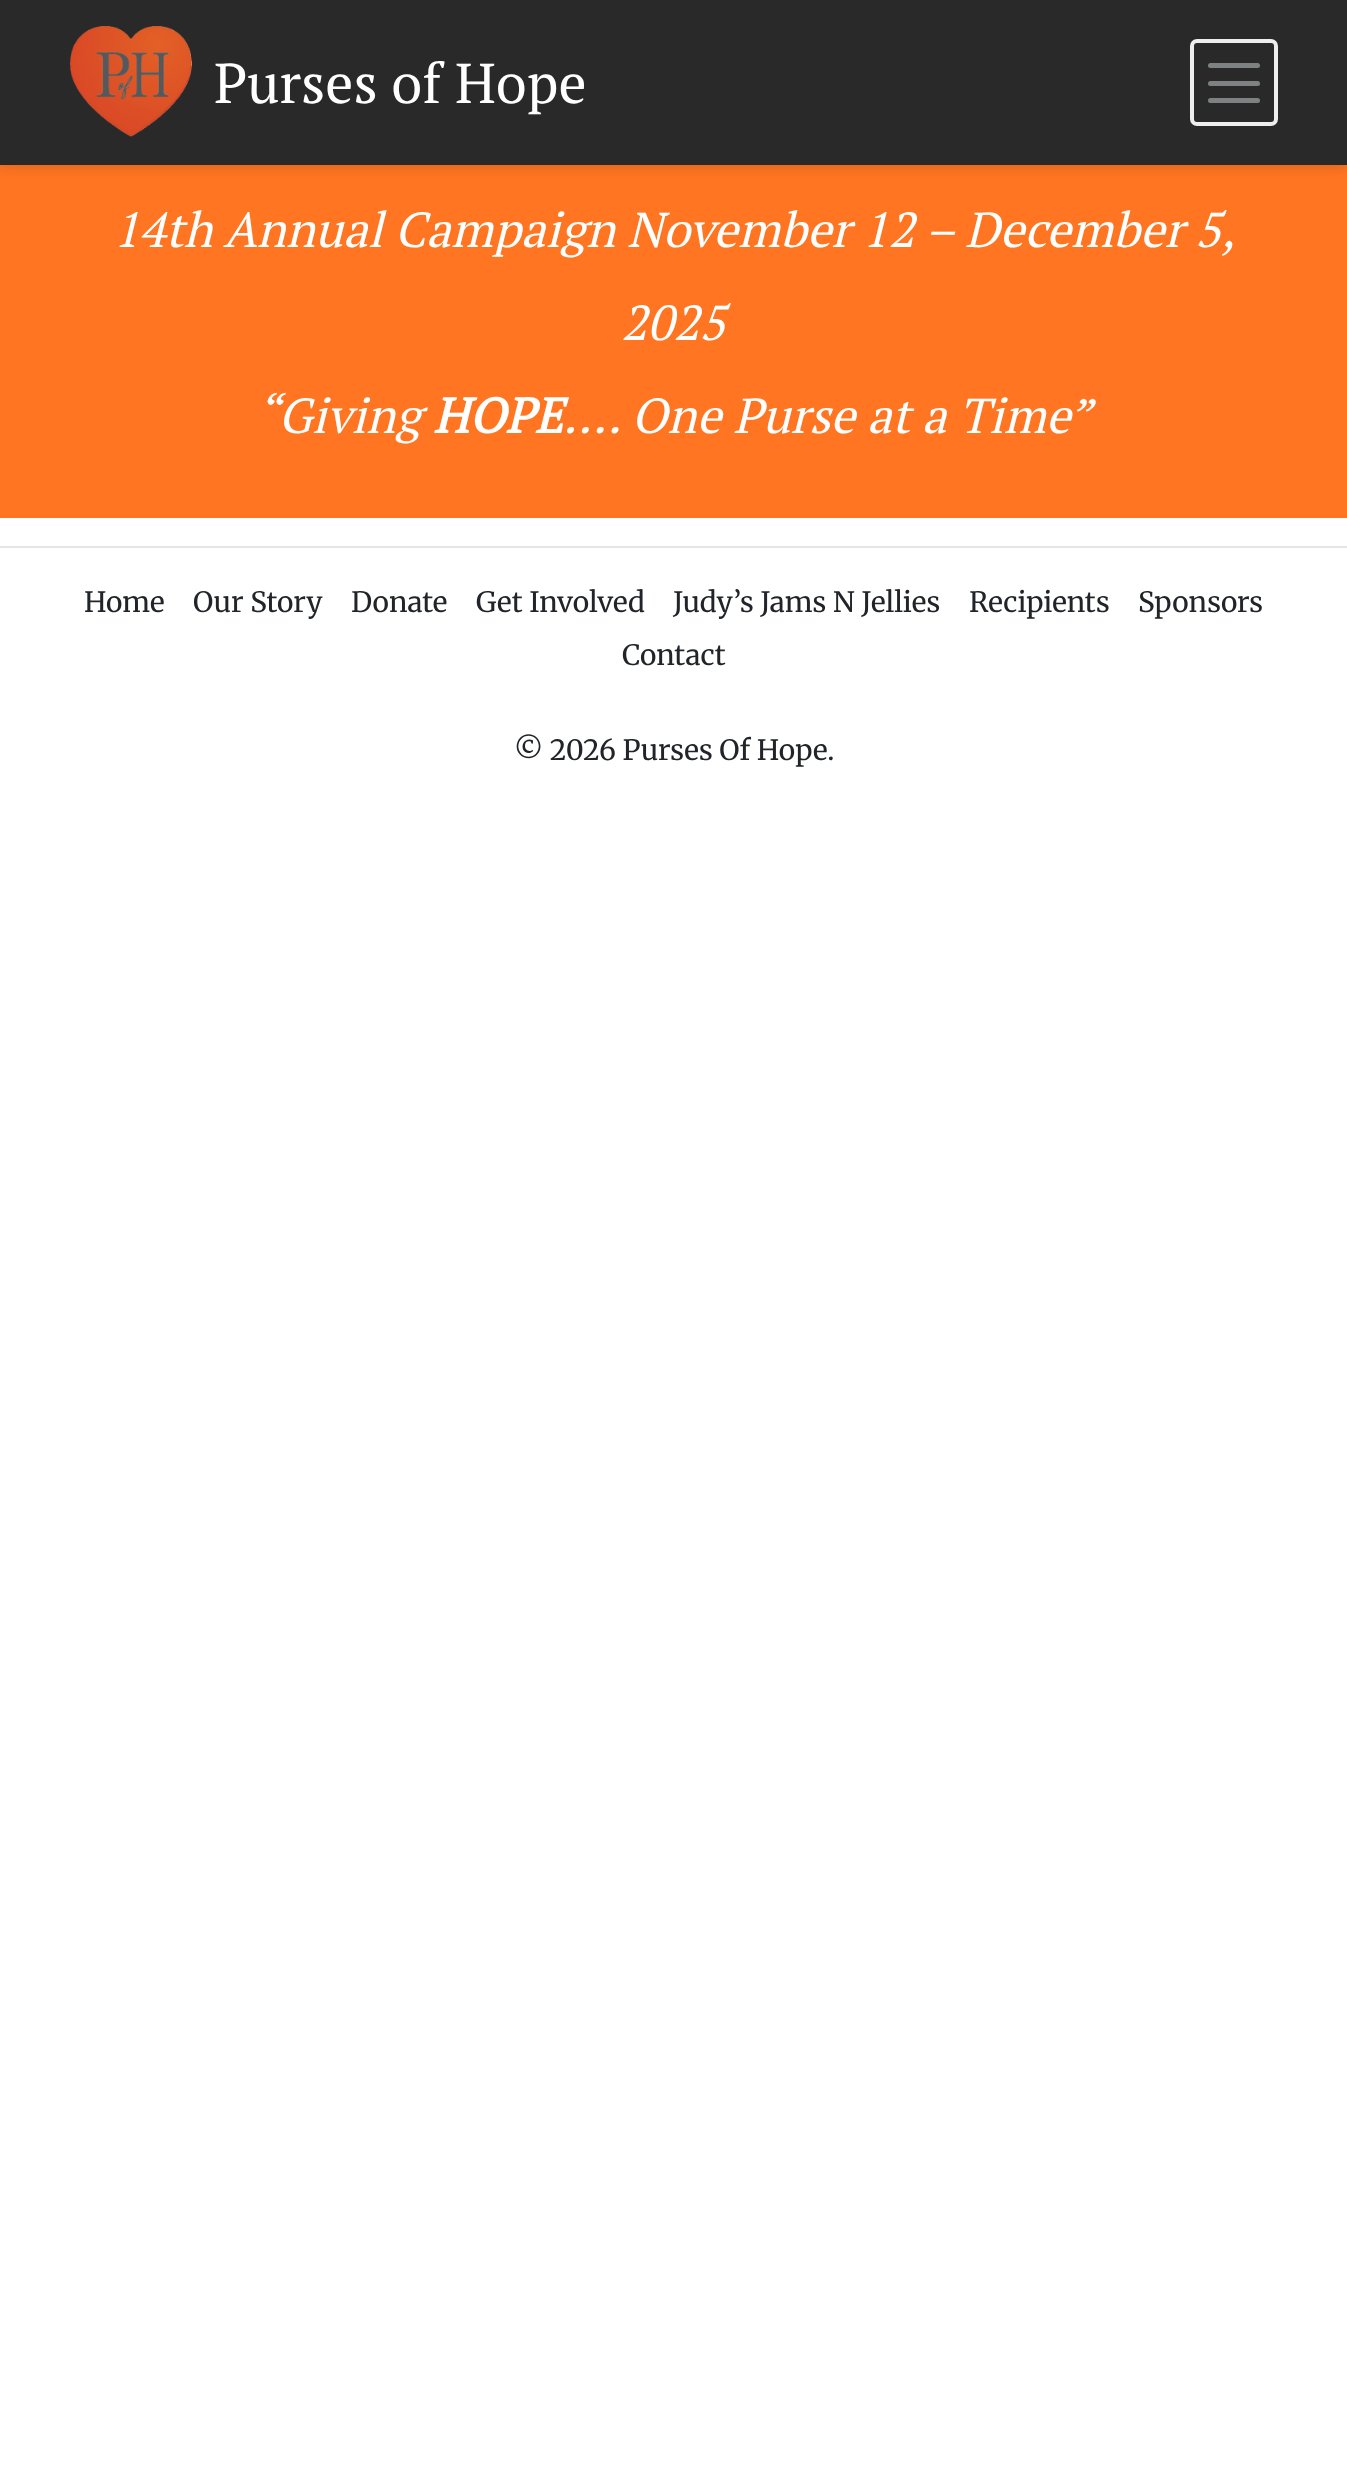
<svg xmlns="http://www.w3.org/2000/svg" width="1347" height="2468">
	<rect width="100%" height="100%" fill="#FFFFFF" />
	<rect x="0" y="165" width="1347" height="353" fill="#FF7521" />
	<rect x="-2" y="-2" width="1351" height="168" fill="#000000" fill-opacity="0.15" filter="blur(7px)" />
	<rect x="0" y="0" width="1347" height="165" fill="#292929" />
	<image x="70" y="26" width="122" height="111" href="assets/img1.png" />
	<text x="214" y="103" font-family="PT Serif" font-size="56" fill="#FFFFFF">Purses of Hope</text>
	<rect x="1192" y="41" width="84" height="83" rx="5" fill="none" stroke="#EEEEEE" stroke-width="4" />
	<rect x="1208" y="63" width="52" height="5" rx="2.5" fill="#7E8182" />
	<rect x="1208" y="81" width="52" height="5" rx="2.5" fill="#7E8182" />
	<rect x="1208" y="98" width="52" height="5" rx="2.5" fill="#7E8182" />
	<g font-family="PT Serif" font-size="49" font-style="italic" fill="#FFFFFF">
		<text x="113" y="247">14th Annual Campaign November 12 – December 5,</text>
		<text x="621" y="340">2025</text>
		<text x="256" y="433">“Giving</text>
	</g>
	<text x="433" y="433" font-family="PT Serif" font-size="49" font-weight="700" font-style="italic" fill="#FFFFFF">HOPE</text>
	<text x="563" y="433" font-family="PT Serif" font-size="49" font-style="italic" fill="#FFFFFF">…. One Purse at a Time”</text>
	<rect x="0" y="546" width="1347" height="2" fill="#E6E6E6" />
	<g font-family="Merriweather" font-size="28" font-weight="300" fill="#212529">
		<text x="84" y="612">Home</text>
		<text x="193" y="612">Our Story</text>
		<text x="351" y="612">Donate</text>
		<text x="476" y="612">Get Involved</text>
		<text x="673" y="612">Judy’s Jams N Jellies</text>
		<text x="969" y="612">Recipients</text>
		<text x="1138" y="612">Sponsors</text>
		<text x="622" y="665">Contact</text>
		<text x="514" y="760">© 2026 Purses Of Hope.</text>
	</g>
</svg>
